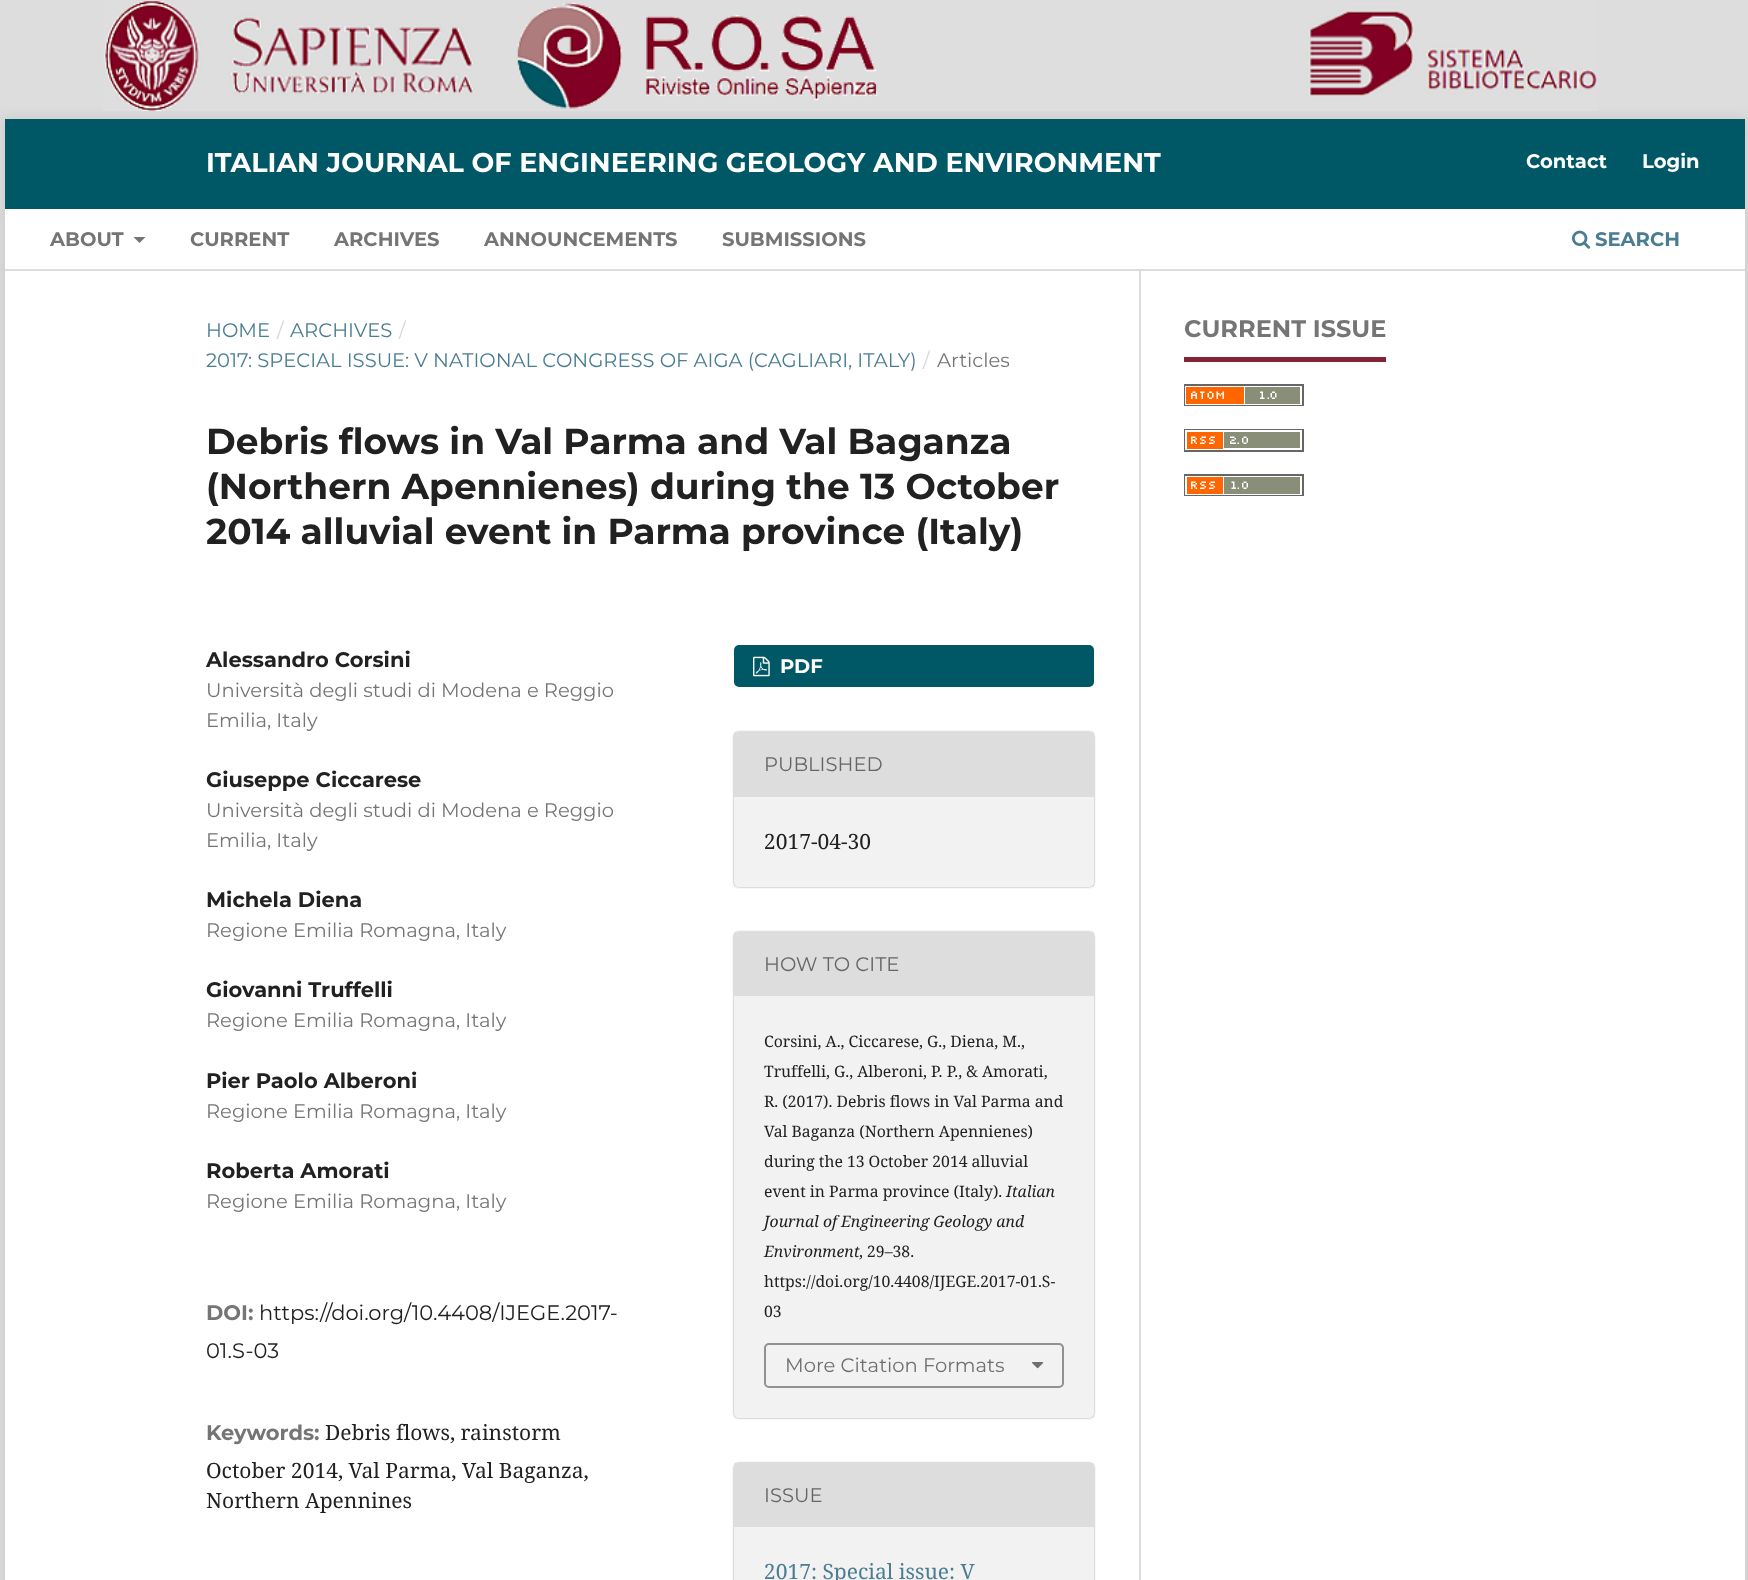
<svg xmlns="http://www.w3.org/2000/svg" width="1748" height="1580">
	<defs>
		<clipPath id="clip1"><path d="M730 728H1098V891H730ZM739 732H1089C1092 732 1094 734 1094 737V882C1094 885 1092 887 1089 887H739C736 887 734 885 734 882V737C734 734 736 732 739 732Z" clip-rule="evenodd" /></clipPath>
		<clipPath id="clip2"><path d="M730 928H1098V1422H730ZM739 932H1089C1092 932 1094 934 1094 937V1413C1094 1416 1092 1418 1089 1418H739C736 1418 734 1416 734 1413V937C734 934 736 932 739 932Z" clip-rule="evenodd" /></clipPath>
		<clipPath id="clip3"><path d="M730 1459H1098V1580H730ZM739 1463H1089C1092 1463 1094 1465 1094 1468V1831C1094 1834 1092 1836 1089 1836H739C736 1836 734 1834 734 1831V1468C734 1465 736 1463 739 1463Z" clip-rule="evenodd" /></clipPath>
	</defs>
	<rect width="100%" height="100%" fill="#DDDDDD" />
	<rect x="5" y="119" width="1740" height="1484" fill="#000000" fill-opacity="0.1" filter="blur(7.5px)" />
	<image x="103" y="1" width="1495" height="110" href="assets/img1.png" />
	<rect x="5" y="271" width="1740" height="1309" fill="#FFFFFF" />
	<rect x="5" y="119" width="1740" height="90" fill="#005866" />
	<rect x="5" y="269" width="1740" height="2" fill="#DDDDDD" />
	<g font-family="Montserrat" font-size="19.55" font-weight="700" fill="#FFFFFF">
		<text x="1526" y="168">Contact</text>
		<text x="1642" y="168">Login</text>
	</g>
	<rect x="5" y="209" width="1740" height="60" fill="#FFFFFF" />
	<text x="50" y="246" font-family="Montserrat" font-size="19.55" font-weight="700" fill="#757575">ABOUT</text>
	<path d="M133.5 237H145.5L139.5 243Z" fill="#757575" />
	<g font-family="Montserrat" font-size="19.55" font-weight="700" fill="#757575">
		<text x="190" y="246">CURRENT</text>
		<text x="334" y="246">ARCHIVES</text>
		<text x="484" y="246">ANNOUNCEMENTS</text>
		<text x="722" y="246">SUBMISSIONS</text>
	</g>
	<image x="1572" y="230" width="19" height="19" href="assets/img2.png" />
	<text x="1595" y="246" font-family="Montserrat" font-size="19.55" font-weight="700" fill="#4B7D92">SEARCH</text>
	<text x="206" y="172" font-family="Montserrat" font-size="27" font-weight="700" fill="#FFFFFF">ITALIAN JOURNAL OF ENGINEERING GEOLOGY AND ENVIRONMENT</text>
	<text x="206" y="337" font-family="Montserrat" font-size="19.55" fill="#4B7D92">HOME</text>
	<text x="277" y="337" font-family="Montserrat" font-size="19.55" fill="#D6D6D6">/</text>
	<text x="290" y="337" font-family="Montserrat" font-size="19.55" fill="#4B7D92">ARCHIVES</text>
	<text x="399" y="337" font-family="Montserrat" font-size="19.55" fill="#D6D6D6">/</text>
	<text x="206" y="367" font-family="Montserrat" font-size="19.55" fill="#4B7D92">2017: SPECIAL ISSUE: V NATIONAL CONGRESS OF AIGA (CAGLIARI, ITALY)</text>
	<text x="923" y="367" font-family="Montserrat" font-size="19.55" fill="#D6D6D6">/</text>
	<text x="937" y="367" font-family="Montserrat" font-size="19.55" fill="#757575">Articles</text>
	<g font-family="Montserrat" font-size="36" font-weight="700" fill="#212121">
		<text x="206" y="454">Debris flows in Val Parma and Val Baganza</text>
		<text x="206" y="499">(Northern Apennienes) during the 13 October</text>
		<text x="206" y="544">2014 alluvial event in Parma province (Italy)</text>
	</g>
	<text x="206" y="667" font-family="Montserrat" font-size="21" font-weight="700" fill="#212121">Alessandro Corsini</text>
	<g font-family="Montserrat" font-size="19.55" fill="#757575">
		<text x="206" y="697">Università degli studi di Modena e Reggio</text>
		<text x="206" y="727">Emilia, Italy</text>
	</g>
	<text x="206" y="787" font-family="Montserrat" font-size="21" font-weight="700" fill="#212121">Giuseppe Ciccarese</text>
	<g font-family="Montserrat" font-size="19.55" fill="#757575">
		<text x="206" y="817">Università degli studi di Modena e Reggio</text>
		<text x="206" y="847">Emilia, Italy</text>
	</g>
	<text x="206" y="907" font-family="Montserrat" font-size="21" font-weight="700" fill="#212121">Michela Diena</text>
	<text x="206" y="937" font-family="Montserrat" font-size="19.55" fill="#757575">Regione Emilia Romagna, Italy</text>
	<text x="206" y="997" font-family="Montserrat" font-size="21" font-weight="700" fill="#212121">Giovanni Truffelli</text>
	<text x="206" y="1027" font-family="Montserrat" font-size="19.55" fill="#757575">Regione Emilia Romagna, Italy</text>
	<text x="206" y="1088" font-family="Montserrat" font-size="21" font-weight="700" fill="#212121">Pier Paolo Alberoni</text>
	<text x="206" y="1118" font-family="Montserrat" font-size="19.55" fill="#757575">Regione Emilia Romagna, Italy</text>
	<text x="206" y="1178" font-family="Montserrat" font-size="21" font-weight="700" fill="#212121">Roberta Amorati</text>
	<text x="206" y="1208" font-family="Montserrat" font-size="19.55" fill="#757575">Regione Emilia Romagna, Italy</text>
	<text x="206" y="1320" font-family="Montserrat" font-size="21" font-weight="700" fill="#757575">DOI:</text>
	<g font-family="Montserrat" font-size="21" fill="#212121">
		<text x="259" y="1320">https://doi.org/10.4408/IJEGE.2017-</text>
		<text x="206" y="1358">01.S-03</text>
	</g>
	<text x="206" y="1440" font-family="Montserrat" font-size="21" font-weight="700" fill="#757575">Keywords:</text>
	<g font-family="Noto Serif" font-size="21" fill="#212121">
		<text x="325" y="1440">Debris flows, rainstorm</text>
		<text x="206" y="1478">October 2014, Val Parma, Val Baganza,</text>
		<text x="206" y="1508">Northern Apennines</text>
	</g>
	<rect x="734" y="645" width="360" height="42" rx="5" fill="#005866" />
	<image x="753" y="656" width="17" height="21" href="assets/img3.png" />
	<text x="780" y="673" font-family="Montserrat" font-size="19.55" font-weight="700" fill="#FFFFFF">PDF</text>
	<g clip-path="url(#clip1)">
		<rect x="734" y="732" width="360" height="155" rx="5" fill="#000000" fill-opacity="0.4" filter="blur(1px)" />
	</g>
	<rect x="734" y="732" width="360" height="155" fill="#000000" fill-opacity="0.05" />
	<path d="M739 732H1089C1092 732 1094 734 1094 737V797H734V737C734 734 736 732 739 732Z" fill="#DDDDDD" />
	<text x="764" y="771" font-family="Montserrat" font-size="19.55" fill="#666666">PUBLISHED</text>
	<text x="764" y="849" font-family="Noto Serif" font-size="21" fill="#212121">2017-04-30</text>
	<g clip-path="url(#clip2)">
		<rect x="734" y="932" width="360" height="486" rx="5" fill="#000000" fill-opacity="0.4" filter="blur(1px)" />
	</g>
	<rect x="734" y="932" width="360" height="486" fill="#000000" fill-opacity="0.05" />
	<path d="M739 932H1089C1092 932 1094 934 1094 937V996H734V937C734 934 736 932 739 932Z" fill="#DDDDDD" />
	<text x="764" y="971" font-family="Montserrat" font-size="19.55" fill="#666666">HOW TO CITE</text>
	<g font-family="Noto Serif" font-size="15.75" fill="#212121">
		<text x="764" y="1047">Corsini, A., Ciccarese, G., Diena, M.,</text>
		<text x="764" y="1077">Truffelli, G., Alberoni, P. P., &amp; Amorati,</text>
		<text x="764" y="1107">R. (2017). Debris flows in Val Parma and</text>
		<text x="764" y="1137">Val Baganza (Northern Apennienes)</text>
		<text x="764" y="1167">during the 13 October 2014 alluvial</text>
		<text x="764" y="1197">event in Parma province (Italy).</text>
	</g>
	<g font-family="Noto Serif" font-size="15.75" font-style="italic" fill="#212121">
		<text x="1006" y="1197">Italian</text>
		<text x="764" y="1227">Journal of Engineering Geology and</text>
		<text x="764" y="1257">Environment</text>
	</g>
	<g font-family="Noto Serif" font-size="15.75" fill="#212121">
		<text x="859" y="1257">, 29–38.</text>
		<text x="764" y="1287">https://doi.org/10.4408/IJEGE.2017-01.S-</text>
		<text x="764" y="1317">03</text>
	</g>
	<rect x="765" y="1344" width="298" height="43" rx="4" fill="none" stroke="#919191" stroke-width="2" />
	<text x="785" y="1372" font-family="Montserrat" font-size="19.55" fill="#6F6F6F">More Citation Formats</text>
	<image x="1032" y="1362" width="12" height="7" href="assets/img4.png" />
	<g clip-path="url(#clip3)">
		<rect x="734" y="1463" width="360" height="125" rx="5" fill="#000000" fill-opacity="0.4" filter="blur(1px)" />
	</g>
	<rect x="734" y="1463" width="360" height="117" fill="#000000" fill-opacity="0.05" />
	<path d="M739 1463H1089C1092 1463 1094 1465 1094 1468V1527H734V1468C734 1465 736 1463 739 1463Z" fill="#DDDDDD" />
	<text x="764" y="1502" font-family="Montserrat" font-size="19.55" fill="#666666">ISSUE</text>
	<text x="764" y="1579" font-family="Noto Serif" font-size="21" fill="#4B7D92">2017: Special issue: V</text>
	<rect x="1139" y="270" width="2" height="1310" fill="#DDDDDD" />
	<rect x="1184" y="357" width="202" height="5" fill="#822433" />
	<text x="1184" y="337" font-family="Montserrat" font-size="24" font-weight="700" fill="#757575">CURRENT ISSUE</text>
	<image x="1184" y="384" width="120" height="22" href="assets/img5.png" />
	<image x="1184" y="429" width="120" height="23" href="assets/img6.png" />
	<image x="1184" y="474" width="120" height="22" href="assets/img7.png" />
</svg>
